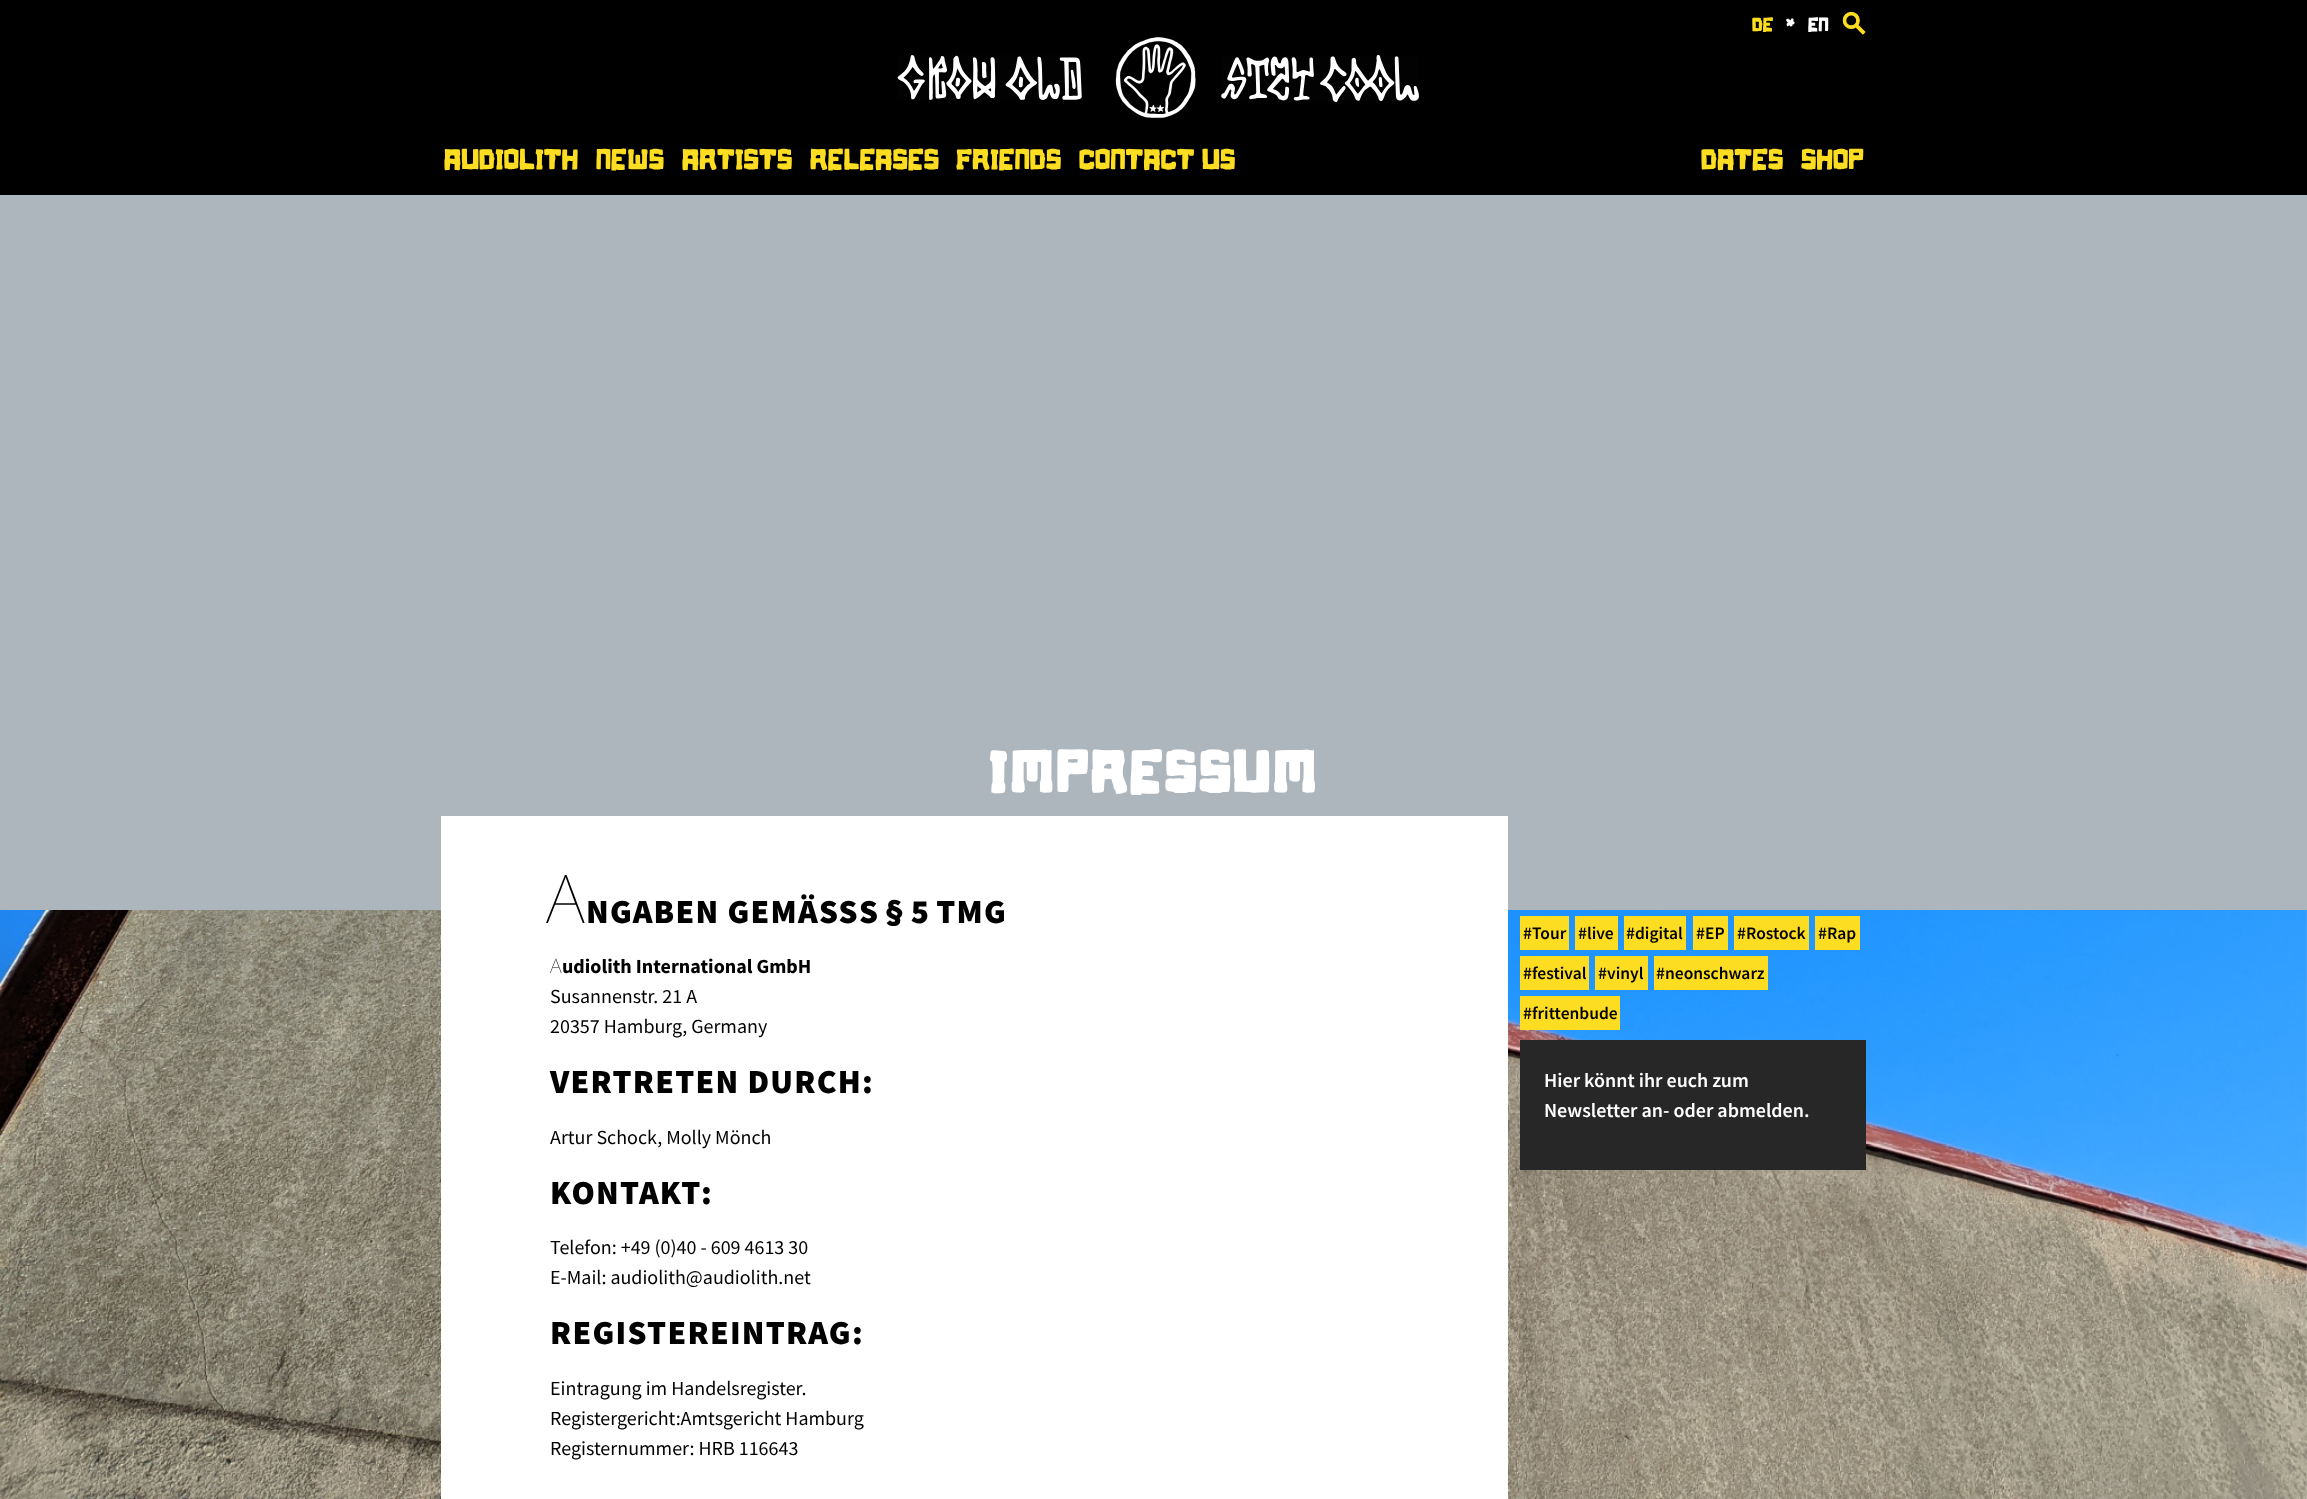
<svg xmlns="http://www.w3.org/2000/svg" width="2307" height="1499">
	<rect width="100%" height="100%" fill="#FFFFFF" />
	<image x="0" y="910" width="2307" height="589" href="assets/img1.png" />
	<rect x="0" y="0" width="2307" height="195" fill="#000000" />
	<image x="897" y="55" width="185" height="45" href="assets/img2.png" />
	<image x="1115" y="37" width="81" height="81" href="assets/img3.png" />
	<image x="1221" y="55" width="198" height="48" href="assets/img4.png" />
	<text x="1752" y="31" font-family="'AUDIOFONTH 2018'" font-size="20" fill="#FCDD22">de</text>
	<g font-family="'AUDIOFONTH 2018'" font-size="20" fill="#FFFFFF">
		<text x="1783" y="31">*</text>
		<text x="1808" y="31">en</text>
	</g>
	<image x="1842" y="11" width="24" height="24" href="assets/img5.png" />
	<g font-family="'AUDIOFONTH 2018'" font-size="29.75" letter-spacing="0.25" fill="#FCDD22">
		<text x="444" y="169">Audiolith</text>
		<text x="596" y="169">News</text>
		<text x="682" y="169">Artists</text>
		<text x="810" y="169">Releases</text>
		<text x="956" y="169">Friends</text>
		<text x="1079" y="169">Contact Us</text>
		<text x="1701" y="169">Dates</text>
		<text x="1801" y="169">Shop</text>
	</g>
	<rect x="0" y="195" width="2307" height="715" fill="#ADB5BD" />
	<text x="989" y="792" font-family="'AUDIOFONTH 2018'" font-size="60" font-weight="700" letter-spacing="3.5" fill="#FFFFFF">IMPRESSUM</text>
	<rect x="441" y="816" width="1067" height="683" fill="#FFFFFF" />
	<text x="546" y="923" font-family="Noto Sans" font-size="67" font-weight="100" letter-spacing="1.25" fill="#000000">A</text>
	<g font-family="Source Sans Pro" font-size="33.75" font-weight="900" letter-spacing="1.25" fill="#000000">
		<text x="586" y="923">NGABEN GEMÄSS</text>
		<text x="859" y="923" word-spacing="-2">S § 5 TMG</text>
	</g>
	<text x="550" y="973" font-family="Noto Sans" font-size="20" font-weight="100" fill="#000000">A</text>
	<text x="562" y="973" font-family="Source Sans Pro" font-size="20" font-weight="700" fill="#000000">udiolith International GmbH</text>
	<g font-family="Source Sans Pro" font-size="20" fill="#000000">
		<text x="550" y="1003">Susannenstr. 21 A</text>
		<text x="550" y="1033">20357 Hamburg, Germany</text>
	</g>
	<text x="550" y="1093" font-family="Source Sans Pro" font-size="33.75" font-weight="900" letter-spacing="1.25" fill="#000000">VERTRETEN DURCH:</text>
	<text x="550" y="1144" font-family="Source Sans Pro" font-size="20" fill="#000000">Artur Schock, Molly Mönch</text>
	<text x="550" y="1204" font-family="Source Sans Pro" font-size="33.75" font-weight="900" letter-spacing="1.25" fill="#000000">KONTAKT:</text>
	<g font-family="Source Sans Pro" font-size="20" fill="#000000">
		<text x="550" y="1254">Telefon: +49 (0)40 - 609 4613 30</text>
		<text x="550" y="1284">E-Mail: audiolith@audiolith.net</text>
	</g>
	<text x="550" y="1344" font-family="Source Sans Pro" font-size="33.75" font-weight="900" letter-spacing="1.25" fill="#000000">REGISTEREINTRAG:</text>
	<g font-family="Source Sans Pro" font-size="20" fill="#000000">
		<text x="550" y="1395">Eintragung im Handelsregister.</text>
		<text x="550" y="1425">Registergericht:Amtsgericht Hamburg</text>
		<text x="550" y="1455">Registernummer: HRB 116643</text>
	</g>
	<rect x="1520" y="916" width="49" height="34" fill="#FCDD22" />
	<text x="1523" y="939" font-family="Source Sans Pro" font-size="17.5" font-weight="600" fill="#000000">#Tour</text>
	<rect x="1575" y="916" width="43" height="34" fill="#FCDD22" />
	<text x="1578" y="939" font-family="Source Sans Pro" font-size="17.5" font-weight="600" fill="#000000">#live</text>
	<rect x="1624" y="916" width="62" height="34" fill="#FCDD22" />
	<text x="1626" y="939" font-family="Source Sans Pro" font-size="17.5" font-weight="600" fill="#000000">#digital</text>
	<rect x="1693" y="916" width="35" height="34" fill="#FCDD22" />
	<text x="1696" y="939" font-family="Source Sans Pro" font-size="17.5" font-weight="600" fill="#000000">#EP</text>
	<rect x="1734" y="916" width="75" height="34" fill="#FCDD22" />
	<text x="1737" y="939" font-family="Source Sans Pro" font-size="17.5" font-weight="600" fill="#000000">#Rostock</text>
	<rect x="1815" y="916" width="45" height="34" fill="#FCDD22" />
	<text x="1818" y="939" font-family="Source Sans Pro" font-size="17.5" font-weight="600" fill="#000000">#Rap</text>
	<rect x="1520" y="956" width="69" height="34" fill="#FCDD22" />
	<text x="1523" y="979" font-family="Source Sans Pro" font-size="17.5" font-weight="600" fill="#000000">#festival</text>
	<rect x="1595" y="956" width="53" height="34" fill="#FCDD22" />
	<text x="1598" y="979" font-family="Source Sans Pro" font-size="17.5" font-weight="600" fill="#000000">#vinyl</text>
	<rect x="1654" y="956" width="114" height="34" fill="#FCDD22" />
	<text x="1656" y="979" font-family="Source Sans Pro" font-size="17.5" font-weight="600" fill="#000000">#neonschwarz</text>
	<rect x="1520" y="996" width="100" height="34" fill="#FCDD22" />
	<text x="1523" y="1019" font-family="Source Sans Pro" font-size="17.5" font-weight="600" fill="#000000">#frittenbude</text>
	<rect x="1520" y="1040" width="346" height="130" fill="#272727" />
	<g font-family="Source Sans Pro" font-size="20" font-weight="600" fill="#FFFFFF">
		<text x="1544" y="1087">Hier könnt ihr euch zum</text>
		<text x="1544" y="1117">Newsletter an- oder abmelden.</text>
	</g>
</svg>
